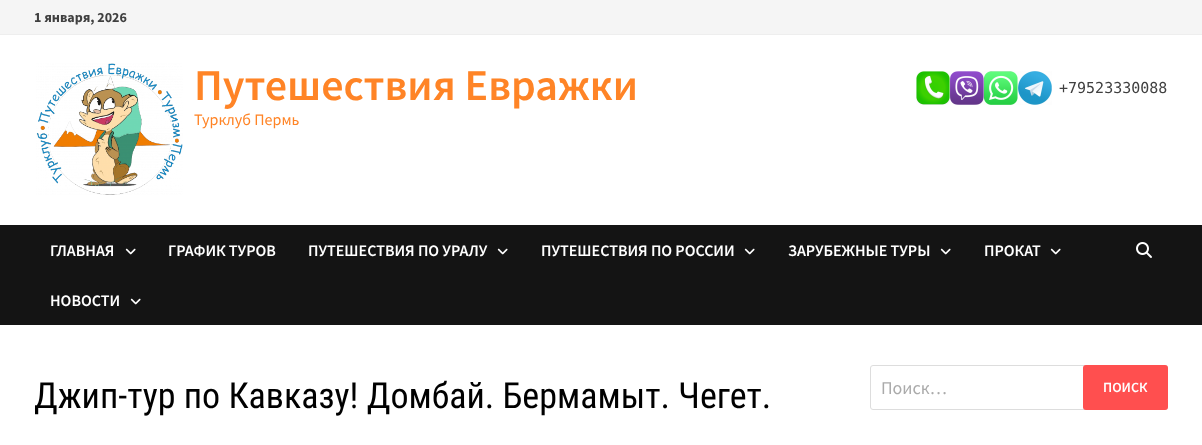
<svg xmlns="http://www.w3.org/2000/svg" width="1202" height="445">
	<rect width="100%" height="100%" fill="#FFFFFF" />
	<rect x="0" y="0" width="1202" height="34" fill="#F5F5F5" />
	<rect x="0" y="34" width="1202" height="1" fill="#EEEEEE" />
	<text x="34" y="22" font-family="Source Sans Pro" font-size="14" font-weight="700" fill="#404040">1 января, 2026</text>
	<image x="36" y="63" width="147" height="132" href="assets/img1.png" />
	<text x="194" y="100" font-family="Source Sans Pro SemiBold" font-size="44" font-weight="600" fill="#FF8426">Путешествия Евражки</text>
	<text x="194" y="125" font-family="Source Sans Pro" font-size="16" fill="#FF8426">Турклуб Пермь</text>
	<image x="916" y="71" width="136" height="34" href="assets/img2.png" />
	<text x="1059" y="93" font-family="DejaVu Sans Mono" font-size="15" fill="#404040">+79523330088</text>
	<rect x="0" y="225" width="1202" height="100" fill="#141414" />
	<text x="50" y="256" font-family="Source Sans Pro SemiBold" font-size="16" font-weight="600" fill="#FFFFFF">ГЛАВНАЯ</text>
	<image x="125" y="248" width="11" height="7" href="assets/img3.png" />
	<g font-family="Source Sans Pro SemiBold" font-size="16" font-weight="600" fill="#FFFFFF">
		<text x="168" y="256">ГРАФИК ТУРОВ</text>
		<text x="308" y="256">ПУТЕШЕСТВИЯ ПО УРАЛУ</text>
	</g>
	<image x="497" y="248" width="11" height="7" href="assets/img3.png" />
	<text x="541" y="256" font-family="Source Sans Pro SemiBold" font-size="16" font-weight="600" fill="#FFFFFF">ПУТЕШЕСТВИЯ ПО РОССИИ</text>
	<image x="744" y="248" width="11" height="7" href="assets/img3.png" />
	<text x="788" y="256" font-family="Source Sans Pro SemiBold" font-size="16" font-weight="600" fill="#FFFFFF">ЗАРУБЕЖНЫЕ ТУРЫ</text>
	<image x="940" y="248" width="11" height="7" href="assets/img3.png" />
	<text x="984" y="256" font-family="Source Sans Pro SemiBold" font-size="16" font-weight="600" fill="#FFFFFF">ПРОКАТ</text>
	<image x="1050" y="248" width="11" height="7" href="assets/img3.png" />
	<text x="50" y="306" font-family="Source Sans Pro SemiBold" font-size="16" font-weight="600" fill="#FFFFFF">НОВОСТИ</text>
	<image x="130" y="298" width="11" height="7" href="assets/img3.png" />
	<image x="1136" y="242" width="16" height="16" href="assets/img4.png" />
	<text x="34" y="408" font-family="Roboto Condensed" font-size="36" fill="#000000">Джип-тур по Кавказу! Домбай. Бермамыт. Чегет.</text>
	<rect x="870.5" y="365.5" width="297" height="44" rx="2.5" fill="none" stroke="#DDDDDD" />
	<text x="881" y="394" font-family="Source Sans Pro" font-size="18" fill="#AAAAAA">Поиск…</text>
	<rect x="1083" y="365" width="85" height="45" rx="3" fill="#FF4F4F" />
	<text x="1103" y="392" font-family="Source Sans Pro SemiBold" font-size="14" font-weight="600" fill="#FFFFFF">ПОИСК</text>
</svg>
